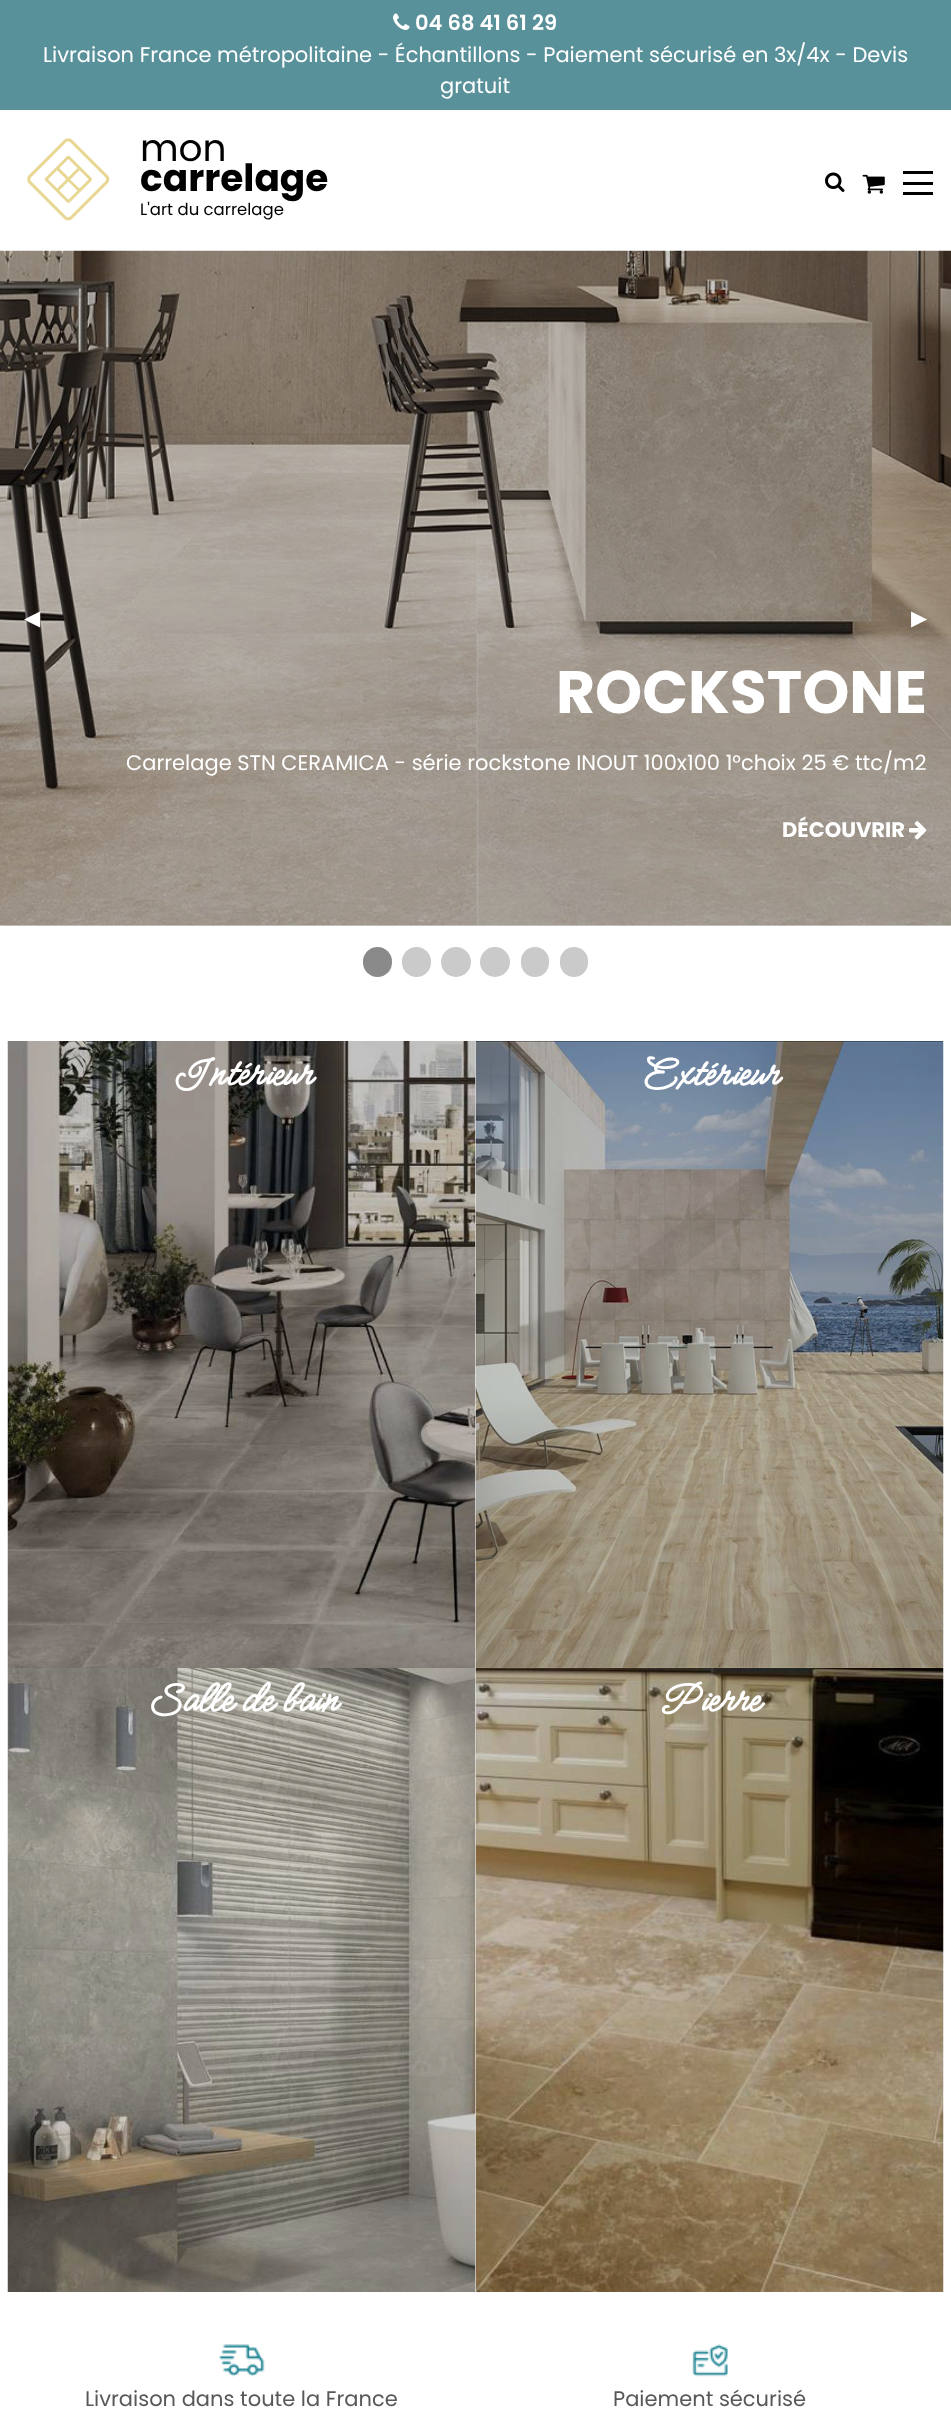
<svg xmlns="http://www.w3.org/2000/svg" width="951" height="2422">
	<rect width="100%" height="100%" fill="#FFFFFF" />
	<rect x="0" y="0" width="951" height="110" fill="#59919A" />
	<image x="393" y="13" width="17" height="17" href="assets/img1.png" />
	<text x="415" y="30" font-family="Poppins" font-size="21" font-weight="600" fill="#FFFFFF">04 68 41 61 29</text>
	<g font-family="Poppins" font-size="21" fill="#FFFFFF">
		<text x="43" y="62">Livraison France métropolitaine - Échantillons - Paiement sécurisé en 3x/4x - Devis</text>
		<text x="440" y="93">gratuit</text>
	</g>
	<image x="27" y="138" width="83" height="83" href="assets/img2.png" />
	<text x="140" y="161" font-family="Poppins" font-size="37.5" fill="#000000">mon</text>
	<text x="140" y="191" font-family="Poppins" font-size="37.5" font-weight="700" fill="#000000">carrelage</text>
	<text x="140" y="215" font-family="Poppins" font-size="16.5" fill="#000000">L'art du carrelage</text>
	<image x="825" y="172" width="20" height="20" href="assets/img3.png" />
	<image x="862" y="174" width="23" height="20" href="assets/img4.png" />
	<rect x="903" y="192" width="30" height="3" fill="#000000" />
	<rect x="903" y="182" width="30" height="3" fill="#000000" />
	<rect x="903" y="171" width="30" height="3" fill="#000000" />
	<rect x="0" y="925" width="951" height="1" fill="#CACACA" />
	<image x="0" y="250" width="951" height="676" href="assets/img5.png" />
	<g font-family="DejaVu Sans" font-size="21" fill="#FFFFFF">
		<text x="24" y="625">◀︎</text>
		<text x="911" y="625">▶︎</text>
	</g>
	<text x="556" y="713" font-family="Poppins" font-size="60" font-weight="700" fill="#FFFFFF">ROCKSTONE</text>
	<text x="126" y="770" font-family="Poppins" font-size="21" fill="#FFFFFF">Carrelage STN CERAMICA - série rockstone INOUT 100x100 1°choix 25 € ttc/m2</text>
	<text x="782" y="837" font-family="Poppins" font-size="21" font-weight="700" fill="#FFFFFF">DÉCOUVRIR</text>
	<image x="909" y="821" width="18" height="19" href="assets/img6.png" />
	<rect x="363" y="947" width="29" height="30" rx="14.5" fill="#8A8A8A" />
	<rect x="402" y="947" width="29" height="30" rx="14.5" fill="#CACACA" />
	<circle cx="456" cy="962" r="15" fill="#CACACA" />
	<circle cx="495" cy="962" r="15" fill="#CACACA" />
	<rect x="521" y="947" width="28" height="30" rx="14" fill="#CACACA" />
	<rect x="560" y="947" width="28" height="30" rx="14" fill="#CACACA" />
	<image x="7" y="1041" width="469" height="627" href="assets/img7.png" />
	<text x="171" y="1085" font-family="Meow Script" font-size="45" font-weight="700" fill="#FFFFFF">Intérieur</text>
	<image x="475" y="1041" width="469" height="627" href="assets/img8.png" />
	<text x="641" y="1085" font-family="Meow Script" font-size="45" font-weight="700" fill="#FFFFFF">Extérieur</text>
	<image x="7" y="1668" width="469" height="624" href="assets/img9.png" />
	<text x="146" y="1711" font-family="Meow Script" font-size="45" font-weight="700" fill="#FFFFFF">Salle de bain</text>
	<image x="475" y="1668" width="469" height="624" href="assets/img10.png" />
	<text x="659" y="1711" font-family="Meow Script" font-size="45" font-weight="700" fill="#FFFFFF">Pierre</text>
	<image x="219" y="2344" width="46" height="33" href="assets/img11.png" />
	<text x="85" y="2406" font-family="Poppins" font-size="21" fill="#58585A">Livraison dans toute la France</text>
	<image x="692" y="2344" width="36" height="33" href="assets/img12.png" />
	<text x="613" y="2406" font-family="Poppins" font-size="21" fill="#58585A">Paiement sécurisé</text>
</svg>
